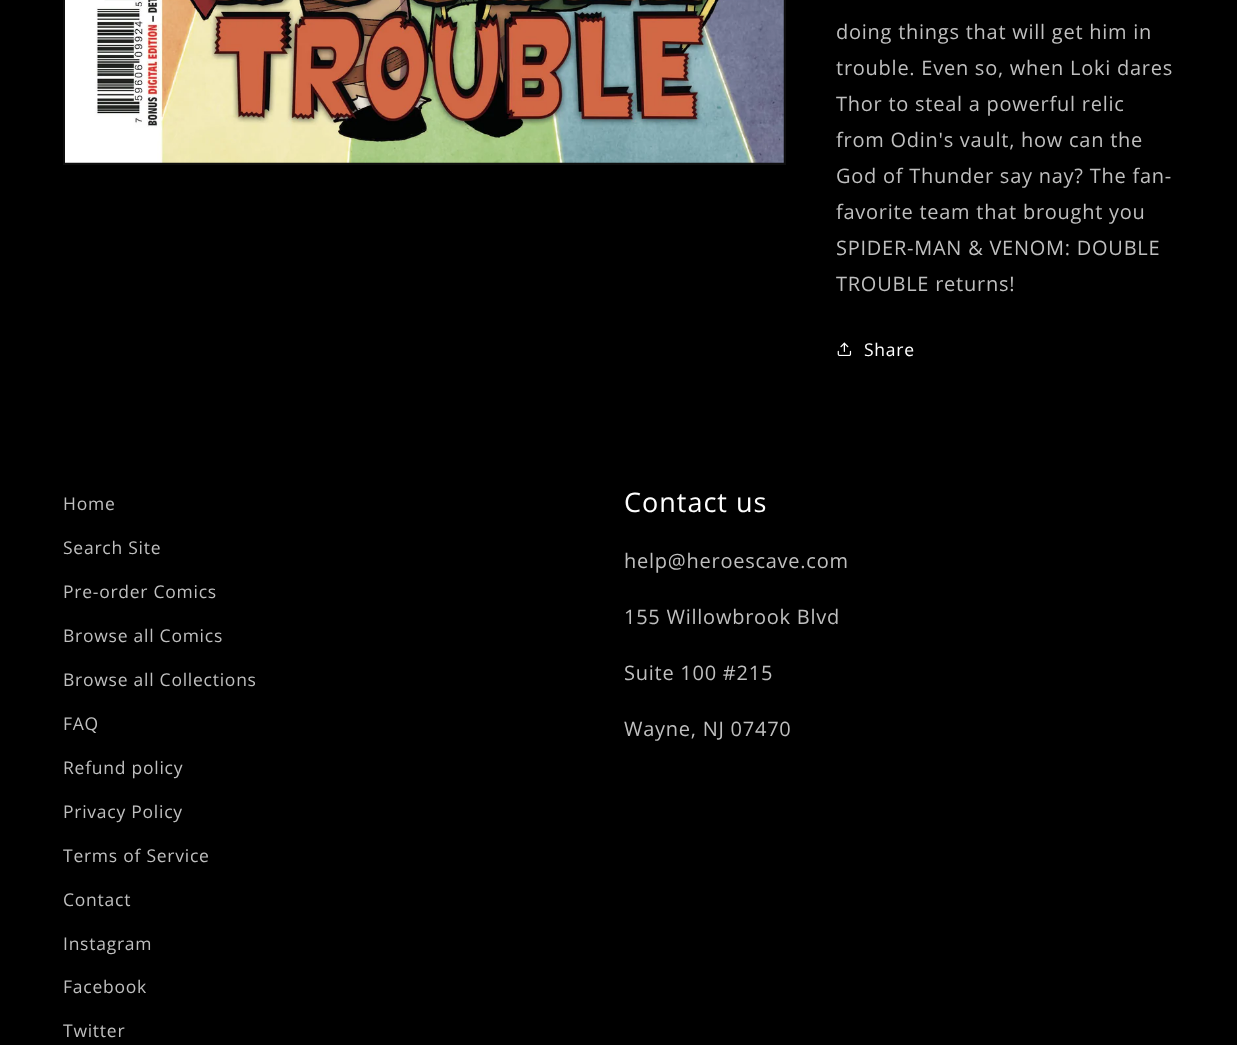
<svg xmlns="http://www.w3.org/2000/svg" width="1237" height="1045">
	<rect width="100%" height="100%" fill="#000000" />
	<rect x="64.5" y="-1.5" width="720" height="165" fill="none" stroke="#0D0D0D" stroke-width="3" />
	<image x="65" y="0" width="719" height="163" href="assets/img1.png" />
	<g font-family="Open Sans" font-size="20" letter-spacing="0.75" fill="#BFBFBF">
		<text x="836" y="39">doing things that will get him in</text>
		<text x="836" y="75">trouble. Even so, when Loki dares</text>
		<text x="836" y="111">Thor to steal a powerful relic</text>
		<text x="836" y="147">from Odin's vault, how can the</text>
		<text x="836" y="183">God of Thunder say nay? The fan-</text>
		<text x="836" y="219">favorite team that brought you</text>
		<text x="836" y="255">SPIDER-MAN &amp; VENOM: DOUBLE</text>
		<text x="836" y="291">TROUBLE returns!</text>
	</g>
	<image x="837" y="342" width="15" height="14" href="assets/img2.png" />
	<text x="864" y="356" font-family="Open Sans" font-size="17.5" letter-spacing="0.75" fill="#FFFFFF">Share</text>
	<g font-family="Open Sans" font-size="17.5" letter-spacing="0.75" fill="#BFBFBF">
		<text x="63" y="510">Home</text>
		<text x="63" y="554">Search Site</text>
		<text x="63" y="598">Pre-order Comics</text>
		<text x="63" y="642">Browse all Comics</text>
		<text x="63" y="686">Browse all Collections</text>
		<text x="63" y="730">FAQ</text>
		<text x="63" y="774">Refund policy</text>
		<text x="63" y="818">Privacy Policy</text>
		<text x="63" y="862">Terms of Service</text>
		<text x="63" y="906">Contact</text>
		<text x="63" y="950">Instagram</text>
		<text x="63" y="993">Facebook</text>
		<text x="63" y="1037">Twitter</text>
	</g>
	<text x="624" y="512" font-family="Open Sans" font-size="27" letter-spacing="1" fill="#FFFFFF">Contact us</text>
	<g font-family="Open Sans" font-size="20" letter-spacing="0.75" fill="#BFBFBF">
		<text x="624" y="568">help@heroescave.com</text>
		<text x="624" y="624">155 Willowbrook Blvd</text>
		<text x="624" y="680">Suite 100 #215</text>
		<text x="624" y="736">Wayne, NJ 07470</text>
	</g>
</svg>
